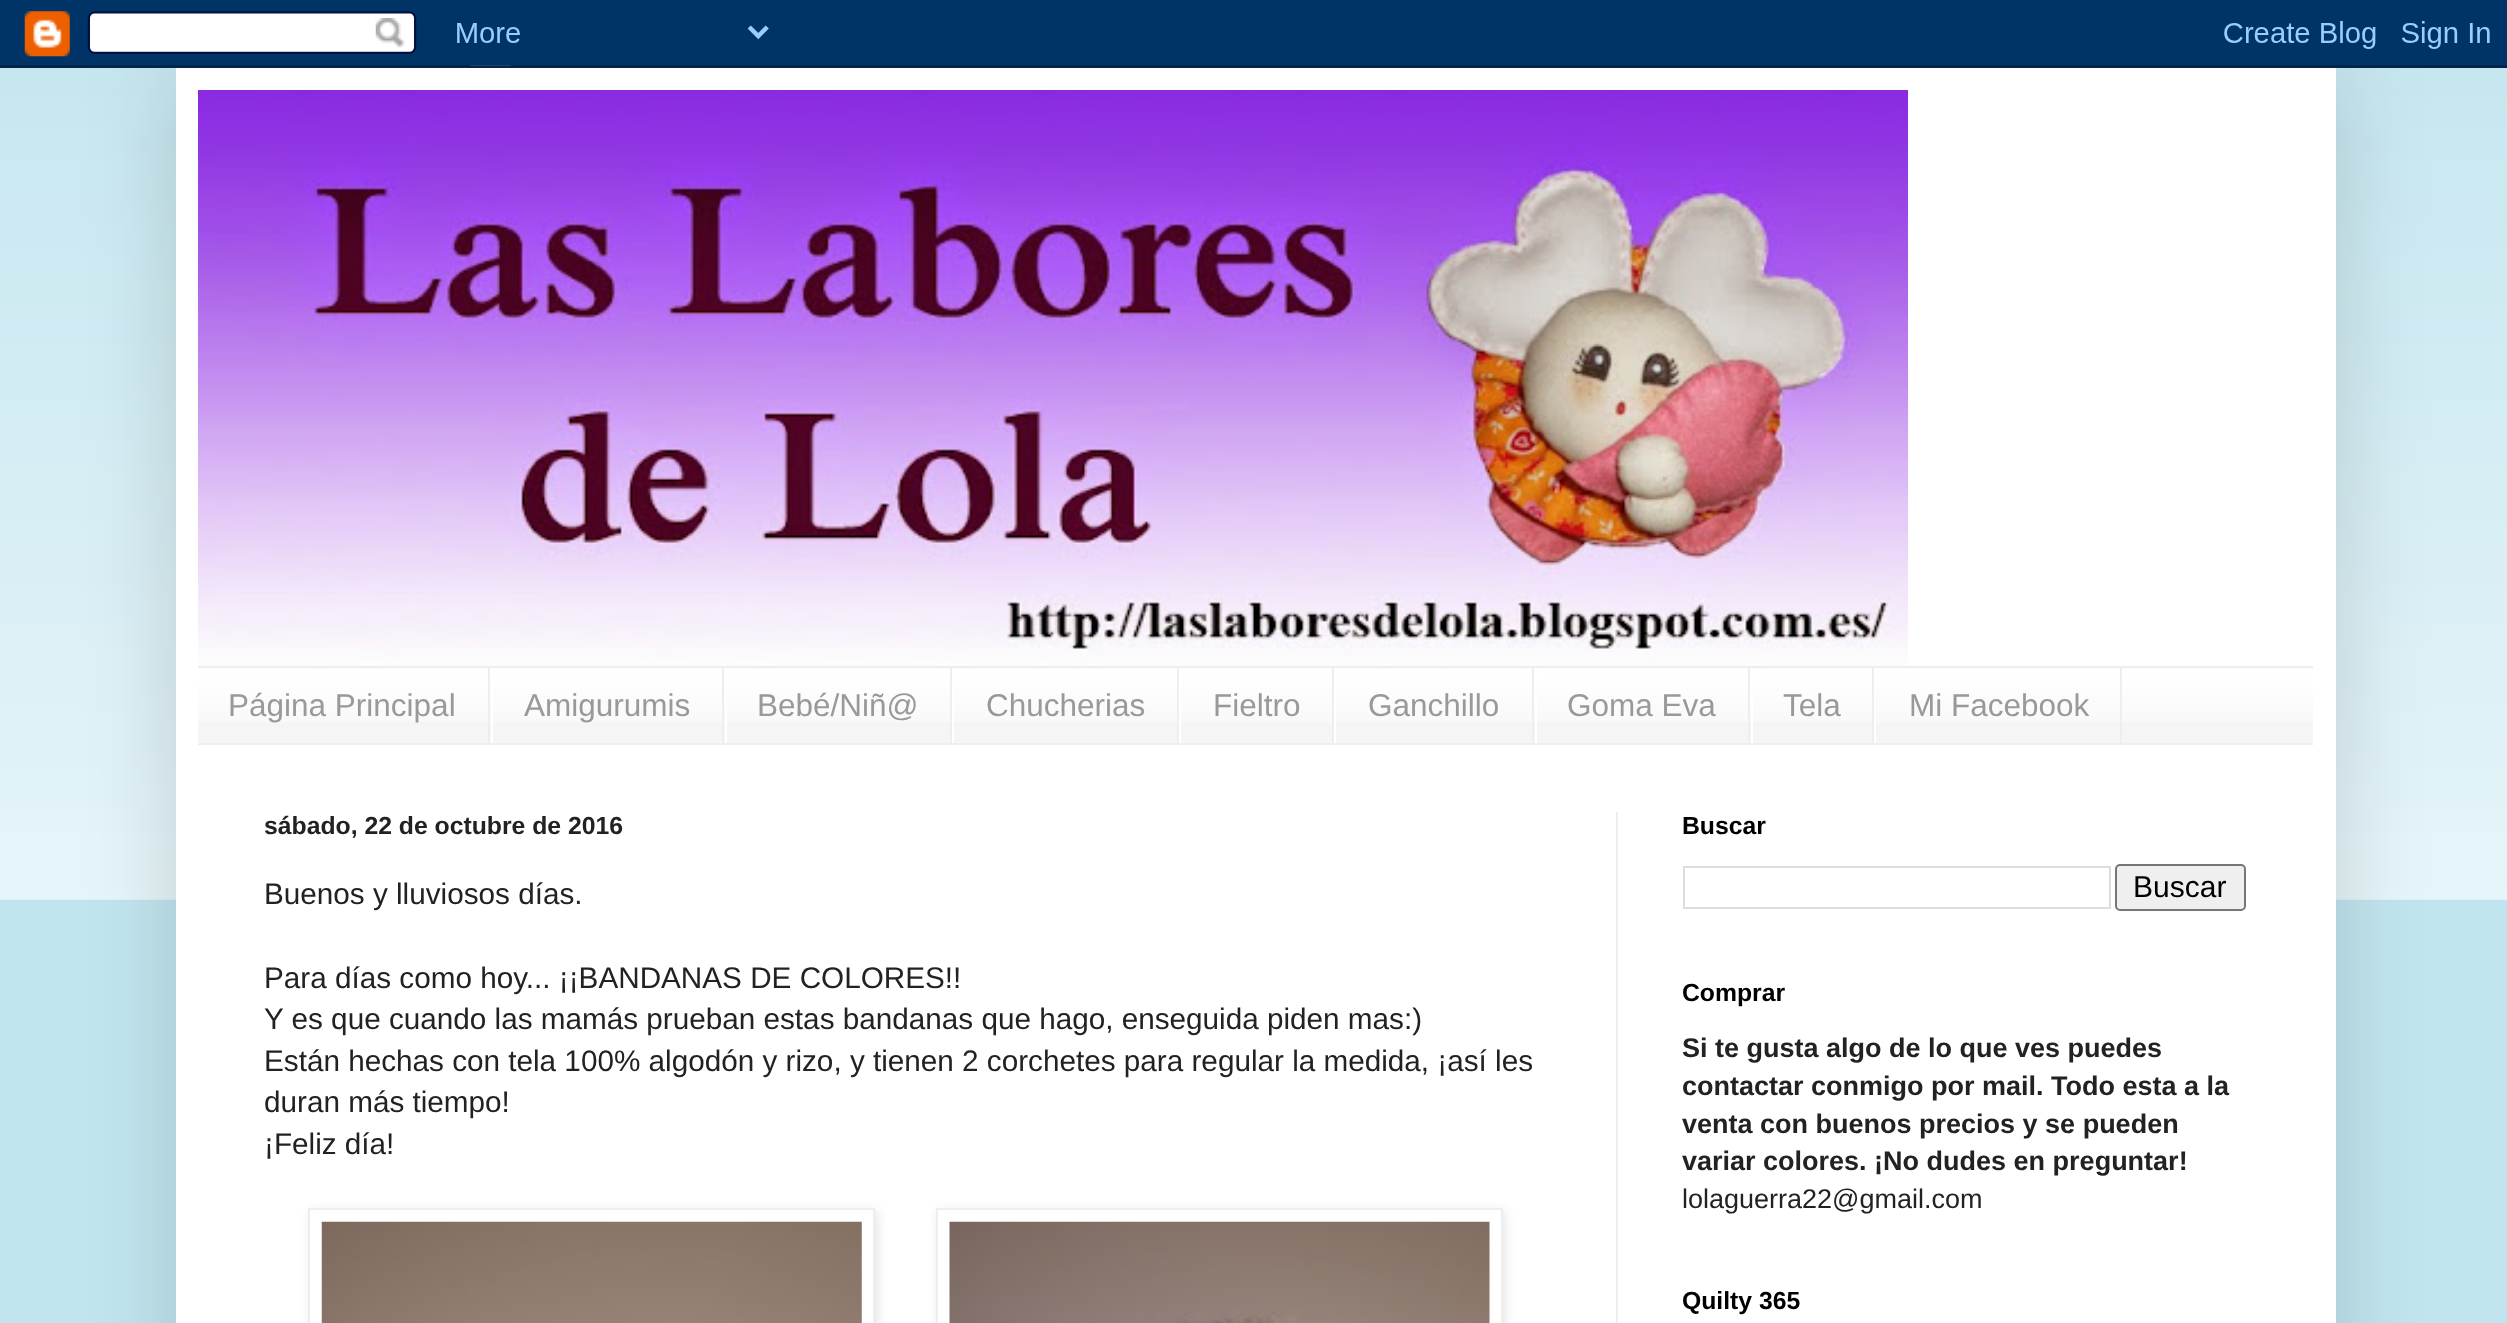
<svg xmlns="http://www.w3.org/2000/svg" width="2507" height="1323">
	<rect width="100%" height="100%" fill="#C1E5EF" />
	<image x="0" y="65" width="2507" height="835" href="assets/img2.png" />
	<rect x="176" y="68" width="2160" height="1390" fill="#000000" fill-opacity="0.15" filter="blur(45px)" />
	<image x="0" y="0" width="2507" height="68" href="assets/img1.png" />
	<rect x="176" y="68" width="2160" height="1255" fill="#FFFFFF" />
	<image x="198" y="90" width="1710" height="576" href="assets/img3.png" />
	<rect x="198" y="668" width="2115" height="75" fill="#F5F5F5" />
	<image x="198" y="668" width="2115" height="54" href="assets/img4.png" />
	<rect x="198" y="666" width="2115" height="2" fill="#EEEEEE" />
	<rect x="198" y="743" width="2115" height="2" fill="#EEEEEE" />
	<rect x="488" y="668" width="2" height="75" fill="#EEEEEE" />
	<text x="228" y="716" font-family="Liberation Sans" font-size="31.5" fill="#999999">Página Principal</text>
	<rect x="722" y="668" width="2" height="75" fill="#EEEEEE" />
	<rect x="491" y="668" width="2" height="75" fill="#FFFFFF" />
	<text x="524" y="716" font-family="Liberation Sans" font-size="31.5" fill="#999999">Amigurumis</text>
	<rect x="950" y="668" width="2" height="75" fill="#EEEEEE" />
	<rect x="725" y="668" width="2" height="75" fill="#FFFFFF" />
	<text x="757" y="716" font-family="Liberation Sans" font-size="31.5" fill="#999999">Bebé/Niñ@</text>
	<rect x="1177" y="668" width="2" height="75" fill="#EEEEEE" />
	<rect x="952" y="668" width="2" height="75" fill="#FFFFFF" />
	<text x="986" y="716" font-family="Liberation Sans" font-size="31.5" fill="#999999">Chucherias</text>
	<rect x="1332" y="668" width="2" height="75" fill="#EEEEEE" />
	<rect x="1179" y="668" width="2" height="75" fill="#FFFFFF" />
	<text x="1213" y="716" font-family="Liberation Sans" font-size="31.5" fill="#999999">Fieltro</text>
	<rect x="1532" y="668" width="2" height="75" fill="#EEEEEE" />
	<rect x="1334" y="668" width="2" height="75" fill="#FFFFFF" />
	<text x="1368" y="716" font-family="Liberation Sans" font-size="31.5" fill="#999999">Ganchillo</text>
	<rect x="1748" y="668" width="2" height="75" fill="#EEEEEE" />
	<rect x="1535" y="668" width="2" height="75" fill="#FFFFFF" />
	<text x="1567" y="716" font-family="Liberation Sans" font-size="31.5" fill="#999999">Goma Eva</text>
	<rect x="1872" y="668" width="2" height="75" fill="#EEEEEE" />
	<rect x="1751" y="668" width="2" height="75" fill="#FFFFFF" />
	<text x="1783" y="716" font-family="Liberation Sans" font-size="31.5" fill="#999999">Tela</text>
	<rect x="2120" y="668" width="2" height="75" fill="#EEEEEE" />
	<rect x="1874" y="668" width="2" height="75" fill="#FFFFFF" />
	<text x="1909" y="716" font-family="Liberation Sans" font-size="31.5" fill="#999999">Mi Facebook</text>
	<rect x="1616" y="812" width="2" height="511" fill="#EEEEEE" />
	<text x="264" y="834" font-family="Liberation Sans" font-size="24.75" font-weight="700" fill="#222222">sábado, 22 de octubre de 2016</text>
	<g font-family="Liberation Sans" font-size="29.7" fill="#222222">
		<text x="264" y="904">Buenos y lluviosos días.</text>
		<text x="264" y="988">Para días como hoy... ¡¡BANDANAS DE COLORES!!</text>
		<text x="264" y="1029">Y es que cuando las mamás prueban estas bandanas que hago, enseguida piden mas:)</text>
		<text x="264" y="1071">Están hechas con tela 100% algodón y rizo, y tienen 2 corchetes para regular la medida, ¡así les</text>
		<text x="264" y="1112">duran más tiempo!</text>
		<text x="264" y="1154">¡Feliz día!</text>
	</g>
	<rect x="311" y="1211" width="567" height="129" fill="#000000" fill-opacity="0.1" filter="blur(5.5px)" />
	<rect x="938" y="1211" width="567" height="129" fill="#000000" fill-opacity="0.1" filter="blur(5.5px)" />
	<rect x="309" y="1209" width="565" height="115" fill="#FFFFFF" stroke="#EEEEEE" stroke-width="2" />
	<rect x="937" y="1209" width="565" height="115" fill="#FFFFFF" stroke="#EEEEEE" stroke-width="2" />
	<image x="321" y="1221" width="541" height="102" href="assets/img5.png" />
	<image x="949" y="1221" width="541" height="102" href="assets/img6.png" />
	<text x="1682" y="834" font-family="Liberation Sans" font-size="24.75" font-weight="700" fill="#000000">Buscar</text>
	<rect x="1684" y="867" width="426" height="41" fill="none" stroke="#DDDDDD" stroke-width="2" />
	<rect x="2116" y="865" width="129" height="45" rx="4" fill="#EFEFEF" stroke="#767676" stroke-width="2" />
	<text x="2133" y="897" font-family="Liberation Sans" font-size="30" fill="#000000">Buscar</text>
	<text x="1682" y="1001" font-family="Liberation Sans" font-size="24.75" font-weight="700" fill="#000000">Comprar</text>
	<g font-family="Liberation Sans" font-size="27" font-weight="700" fill="#222222">
		<text x="1682" y="1057">Si te gusta algo de lo que ves puedes</text>
		<text x="1682" y="1095">contactar conmigo por mail. Todo esta a la</text>
		<text x="1682" y="1133">venta con buenos precios y se pueden</text>
		<text x="1682" y="1170">variar colores. ¡No dudes en preguntar!</text>
	</g>
	<text x="1682" y="1208" font-family="Liberation Sans" font-size="27" fill="#222222">lolaguerra22@gmail.com</text>
	<text x="1682" y="1309" font-family="Liberation Sans" font-size="24.75" font-weight="700" fill="#000000">Quilty 365</text>
</svg>
